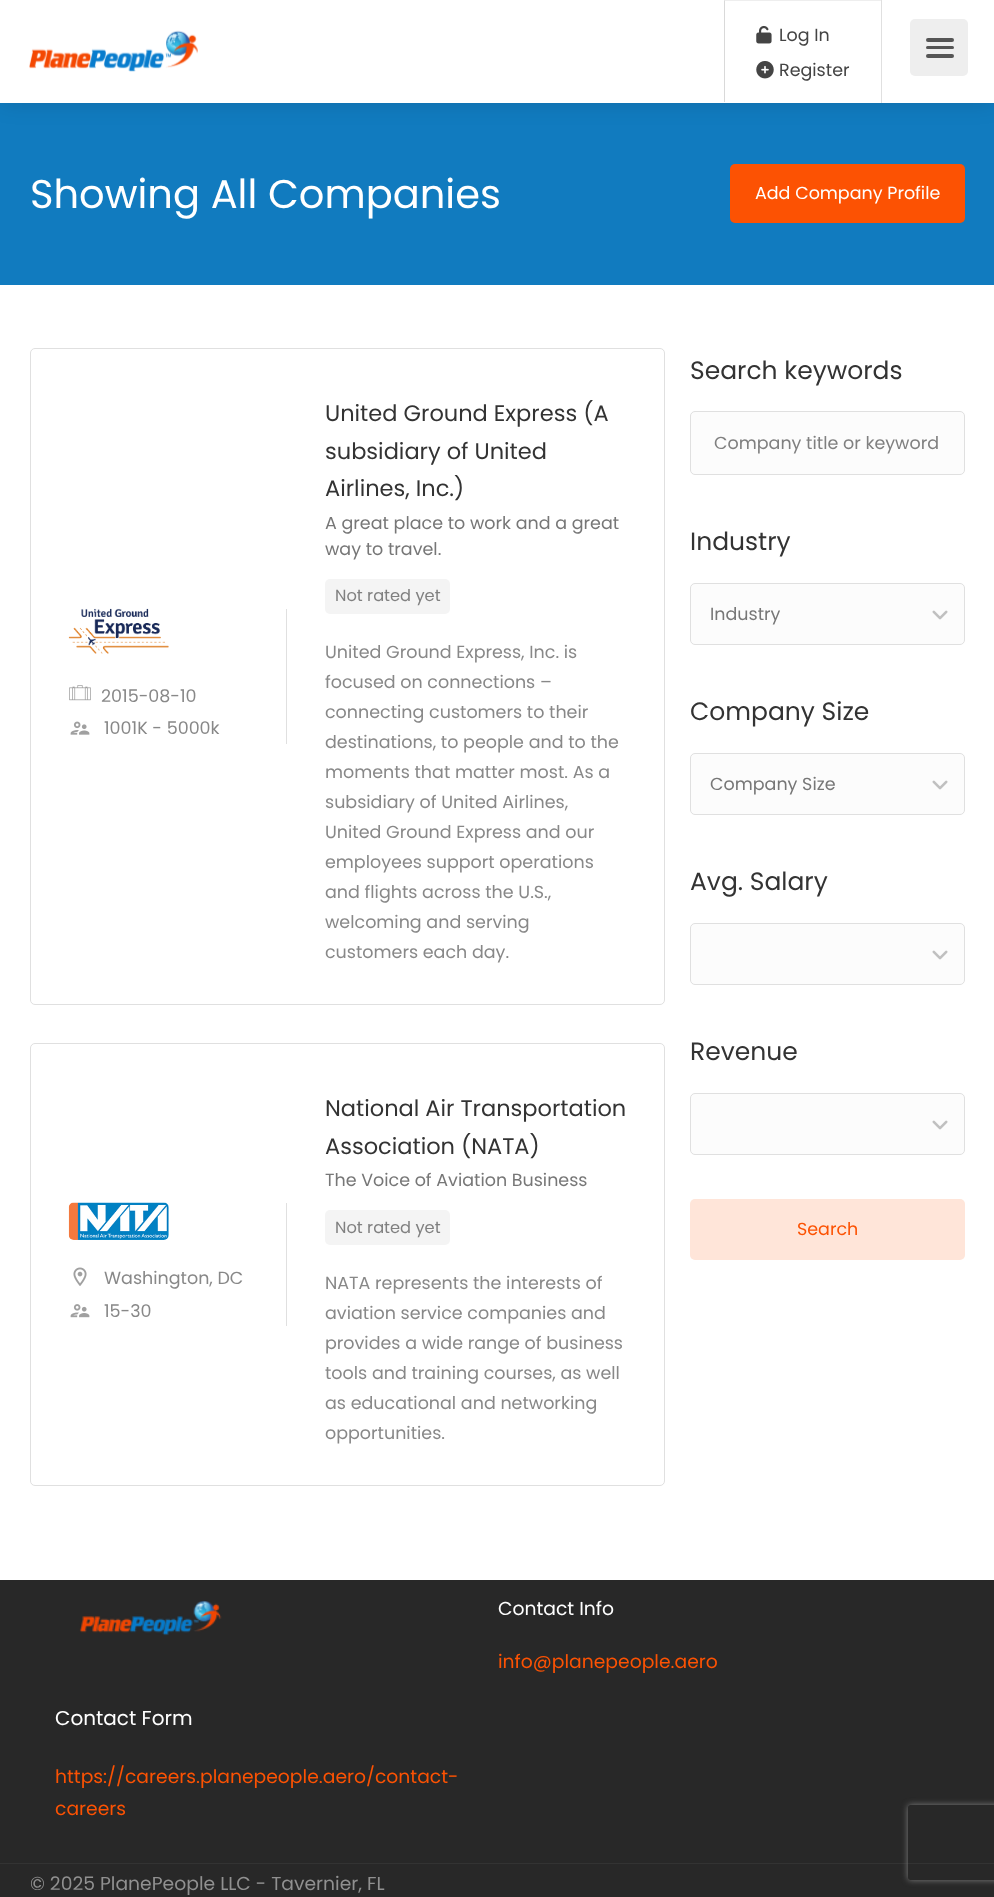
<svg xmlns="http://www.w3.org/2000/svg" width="994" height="1897">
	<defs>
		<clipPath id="clip1"><path d="M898 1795H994V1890H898ZM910.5 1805H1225.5C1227 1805 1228 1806 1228 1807.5V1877.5C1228 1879 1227 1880 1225.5 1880H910.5C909 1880 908 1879 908 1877.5V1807.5C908 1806 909 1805 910.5 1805Z" clip-rule="evenodd" /></clipPath>
	</defs>
	<rect width="100%" height="100%" fill="#FFFFFF" />
	<rect x="0" y="103" width="994" height="182" fill="#117BBF" />
	<rect x="0" y="0" width="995" height="103" fill="#000000" fill-opacity="0.12" filter="blur(11px)" />
	<rect x="0" y="0" width="994" height="103" fill="#FFFFFF" />
	<image x="29" y="30" width="169" height="42" href="assets/img1.png" />
	<path d="M724 0H882L881 1H725Z" fill="#EEEEEE" />
	<rect x="881" y="0" width="1" height="103" fill="#E0E0E0" />
	<path d="M724 102V0L725 1V102Z" fill="#000000" fill-opacity="0.15" />
	<image x="756" y="25" width="16" height="19" href="assets/img2.png" />
	<text x="779" y="41" font-family="Poppins" font-size="17.5" fill="#444444">Log In</text>
	<image x="756" y="61" width="18" height="18" href="assets/img3.png" />
	<text x="779" y="76" font-family="Poppins" font-size="17.5" fill="#444444">Register</text>
	<rect x="910" y="19" width="58" height="57" rx="5" fill="#EEEEEE" />
	<rect x="926" y="54" width="28" height="4" rx="2" fill="#555555" />
	<rect x="926" y="38" width="28" height="4" rx="2" fill="#555555" />
	<rect x="926" y="46" width="28" height="3" rx="1.5" fill="#555555" />
	<text x="30" y="208" font-family="Poppins" font-size="40" fill="#FFFFFF">Showing All Companies</text>
	<rect x="730" y="164" width="235" height="59" rx="5" fill="#FC5203" />
	<text x="755" y="199" font-family="Poppins" font-size="17.5" fill="#FFFFFF">Add Company Profile</text>
	<rect x="30.5" y="348.5" width="634" height="656" rx="4.5" fill="none" stroke="#E0E0E0" />
	<rect x="286" y="609" width="1" height="135" fill="#E0E0E0" />
	<image x="68" y="608" width="101" height="46" href="assets/img4.png" />
	<image x="69" y="685" width="22" height="16" href="assets/img5.png" />
	<text x="101" y="702" font-family="Poppins" font-size="17.5" fill="#888888">2015-08-10</text>
	<image x="70" y="721" width="20" height="14" href="assets/img6.png" />
	<text x="104" y="734" font-family="Poppins" font-size="17.5" fill="#888888">1001K - 5000k</text>
	<g font-family="Poppins" font-size="22.5" fill="#333333">
		<text x="325" y="421">United Ground Express (A</text>
		<text x="325" y="459">subsidiary of United</text>
		<text x="325" y="496">Airlines, Inc.)</text>
	</g>
	<g font-family="Poppins" font-size="17.5" fill="#777777">
		<text x="325" y="529">A great place to work and a great</text>
		<text x="325" y="555">way to travel.</text>
	</g>
	<rect x="325" y="579" width="125" height="35" rx="5" fill="#F4F4F4" />
	<text x="335" y="601" font-family="Poppins" font-size="16.25" fill="#808080">Not rated yet</text>
	<g font-family="Poppins" font-size="17.5" fill="#888888">
		<text x="325" y="658">United Ground Express, Inc. is</text>
		<text x="325" y="688">focused on connections –</text>
		<text x="325" y="718">connecting customers to their</text>
		<text x="325" y="748">destinations, to people and to the</text>
		<text x="325" y="778">moments that matter most. As a</text>
		<text x="325" y="808">subsidiary of United Airlines,</text>
		<text x="325" y="838">United Ground Express and our</text>
		<text x="325" y="868">employees support operations</text>
		<text x="325" y="898">and flights across the U.S.,</text>
		<text x="325" y="928">welcoming and serving</text>
		<text x="325" y="958">customers each day.</text>
	</g>
	<rect x="30.5" y="1043.5" width="634" height="442" rx="4.5" fill="none" stroke="#E0E0E0" />
	<rect x="286" y="1203" width="1" height="123" fill="#E0E0E0" />
	<image x="68" y="1202" width="101" height="38" href="assets/img7.png" />
	<image x="73" y="1267" width="14" height="19" href="assets/img8.png" />
	<text x="104" y="1284" font-family="Poppins" font-size="17.5" fill="#888888">Washington, DC</text>
	<image x="70" y="1304" width="20" height="14" href="assets/img9.png" />
	<text x="104" y="1317" font-family="Poppins" font-size="17.5" fill="#888888">15-30</text>
	<g font-family="Poppins" font-size="22.5" fill="#333333">
		<text x="325" y="1116">National Air Transportation</text>
		<text x="325" y="1154">Association (NATA)</text>
	</g>
	<text x="325" y="1186" font-family="Poppins" font-size="17.5" fill="#777777">The Voice of Aviation Business</text>
	<rect x="325" y="1210" width="125" height="35" rx="5" fill="#F4F4F4" />
	<text x="335" y="1233" font-family="Poppins" font-size="16.25" fill="#808080">Not rated yet</text>
	<g font-family="Poppins" font-size="17.5" fill="#888888">
		<text x="325" y="1289">NATA represents the interests of</text>
		<text x="325" y="1319">aviation service companies and</text>
		<text x="325" y="1349">provides a wide range of business</text>
		<text x="325" y="1379">tools and training courses, as well</text>
		<text x="325" y="1409">as educational and networking</text>
		<text x="325" y="1439">opportunities.</text>
	</g>
	<text x="690" y="379" font-family="Poppins" font-size="25" fill="#333333">Search keywords</text>
	<rect x="690.5" y="411.5" width="274" height="63" rx="4.5" fill="#FCFCFC" stroke="#E0E0E0" />
	<text x="714" y="449" font-family="Poppins" font-size="17.5" fill="#808080">Company title or keyword</text>
	<text x="690" y="550" font-family="Poppins" font-size="25" fill="#333333">Industry</text>
	<rect x="690.5" y="583.5" width="274" height="61" rx="4.5" fill="#FCFCFC" stroke="#E0E0E0" />
	<text x="710" y="620" font-family="Poppins" font-size="17.5" fill="#777777">Industry</text>
	<image x="932" y="610" width="16" height="10" href="assets/img10.png" />
	<text x="690" y="720" font-family="Poppins" font-size="25" fill="#333333">Company Size</text>
	<rect x="690.5" y="753.5" width="274" height="61" rx="4.5" fill="#FCFCFC" stroke="#E0E0E0" />
	<text x="710" y="790" font-family="Poppins" font-size="17.5" fill="#777777">Company Size</text>
	<image x="932" y="780" width="16" height="10" href="assets/img10.png" />
	<text x="690" y="890" font-family="Poppins" font-size="25" fill="#333333">Avg. Salary</text>
	<rect x="690.5" y="923.5" width="274" height="61" rx="4.5" fill="#FCFCFC" stroke="#E0E0E0" />
	<image x="932" y="950" width="16" height="10" href="assets/img10.png" />
	<text x="690" y="1060" font-family="Poppins" font-size="25" fill="#333333">Revenue</text>
	<rect x="690.5" y="1093.5" width="274" height="61" rx="4.5" fill="#FCFCFC" stroke="#E0E0E0" />
	<image x="932" y="1120" width="16" height="10" href="assets/img10.png" />
	<rect x="690" y="1199" width="275" height="61" rx="5" fill="#FFE5D9" />
	<text x="797" y="1235" font-family="Poppins" font-size="17.5" fill="#FC5203">Search</text>
	<rect x="0" y="1580" width="994" height="317" fill="#282828" />
	<image x="79" y="1600" width="143" height="36" href="assets/img11.png" />
	<text x="498" y="1615" font-family="Poppins" font-size="18.75" fill="#FFFFFF">Contact Info</text>
	<text x="498" y="1668" font-family="Poppins" font-size="18.75" fill="#FC5203">info@planepeople.aero</text>
	<text x="55" y="1725" font-family="Poppins" font-size="20" fill="#FFFFFF">Contact Form</text>
	<g font-family="Poppins" font-size="18.75" fill="#FC5203">
		<text x="55" y="1783">https://careers.planepeople.aero/contact-</text>
		<text x="55" y="1815">careers</text>
	</g>
	<rect x="0" y="1863" width="994" height="1" fill="#333333" />
	<text x="30" y="1890" font-family="Poppins" font-size="18.75" fill="#909090">© 2025 PlanePeople LLC - Tavernier, FL</text>
	<g clip-path="url(#clip1)">
		<rect x="908" y="1805" width="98" height="75" rx="2.5" fill="#808080" filter="blur(3px)" />
	</g>
</svg>
